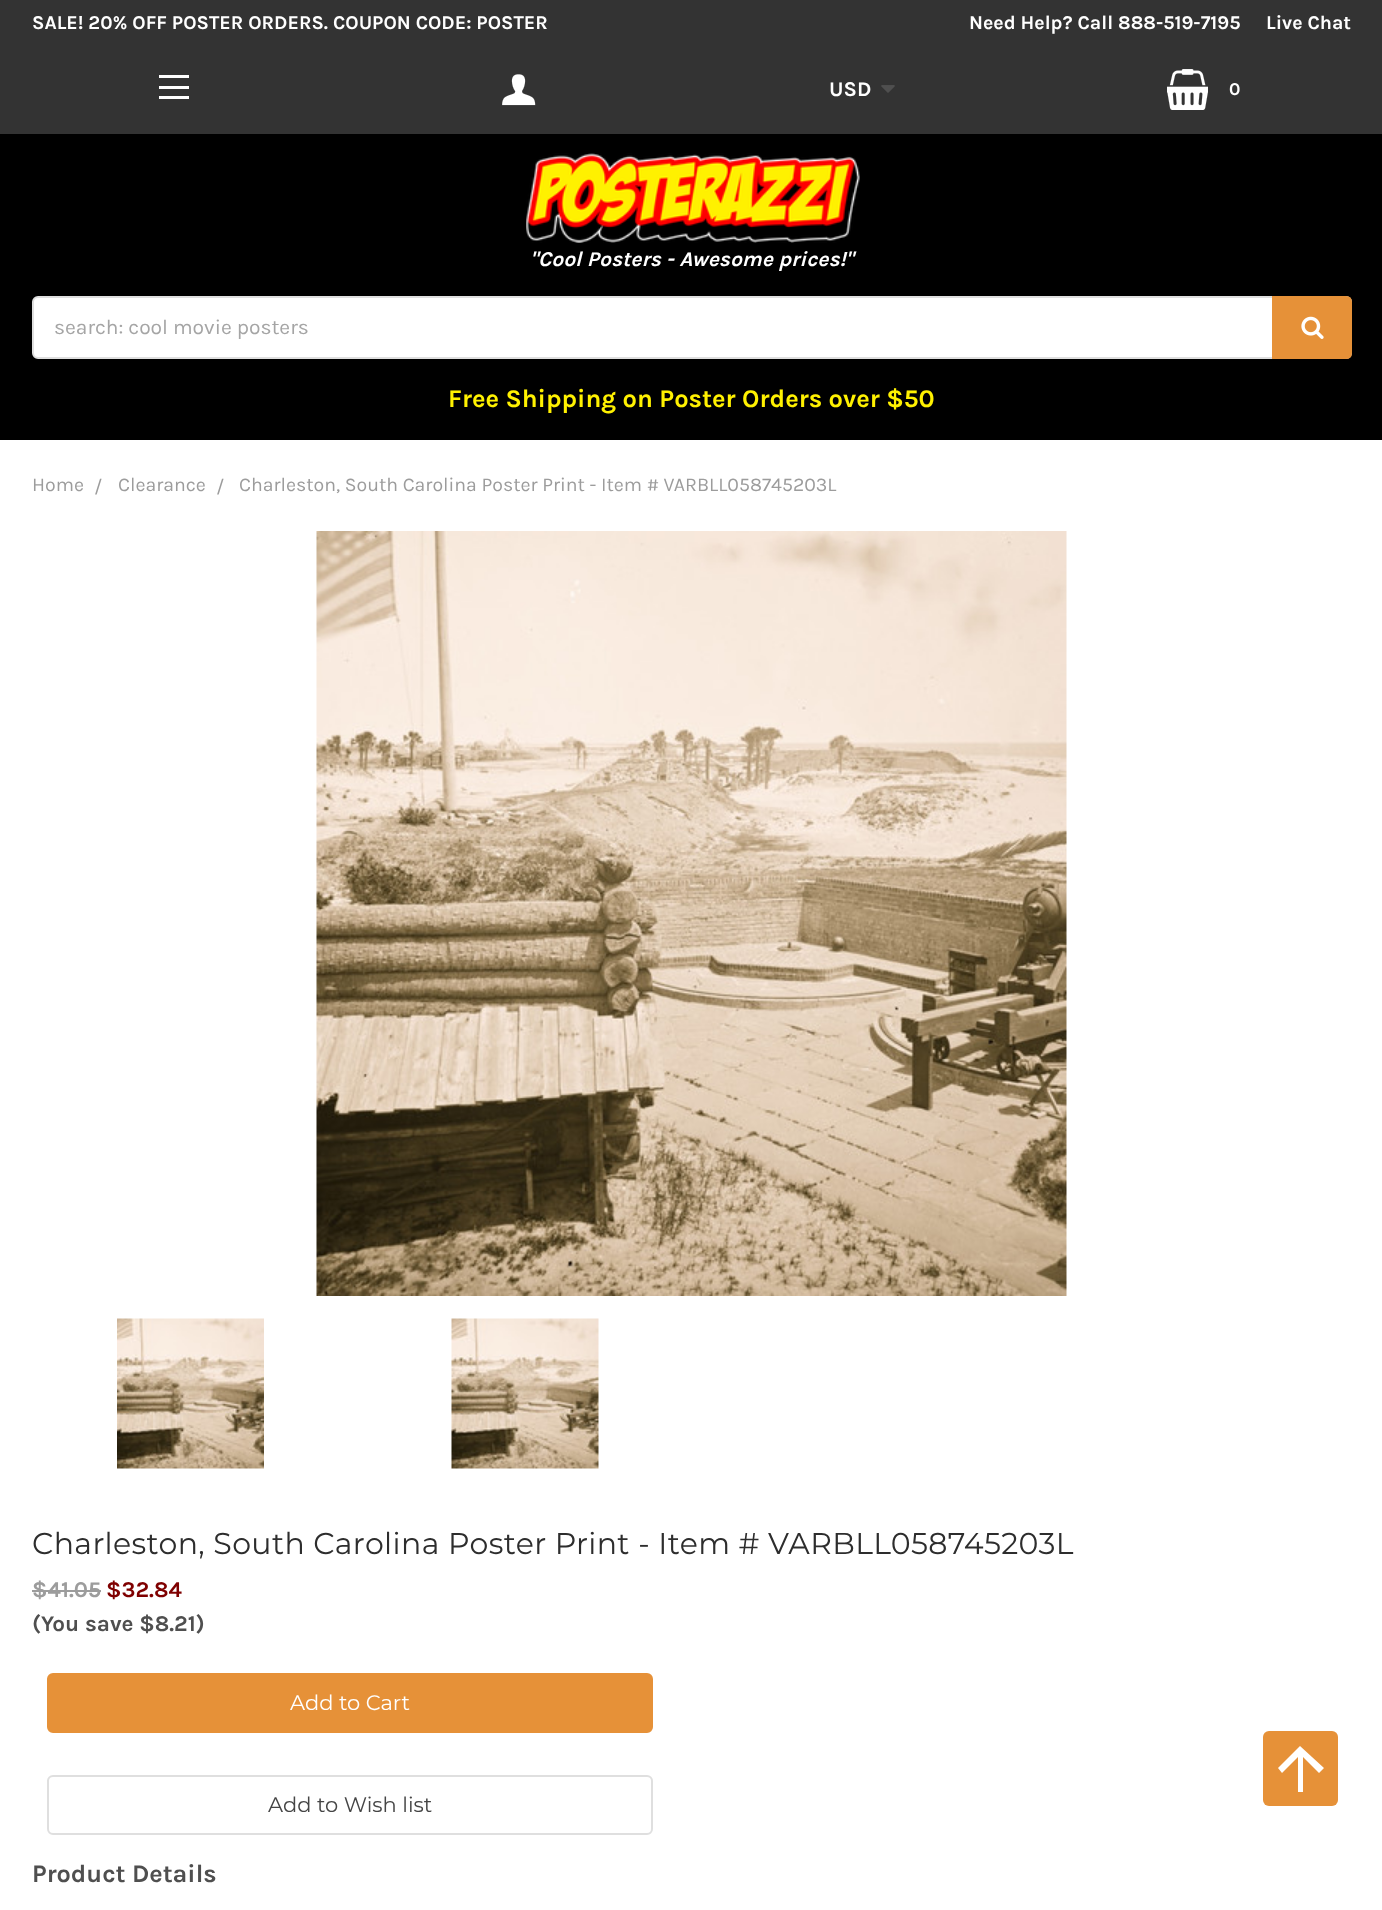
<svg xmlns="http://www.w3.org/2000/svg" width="1382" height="1910">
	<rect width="100%" height="100%" fill="#FFFFFF" />
	<rect x="0" y="134" width="1382" height="306" fill="#000000" />
	<rect x="0" y="0" width="1382" height="134" fill="#333333" />
	<g font-family="Karla" font-size="19.5" font-weight="700" fill="#FFFFFF">
		<text x="32" y="29">SALE! 20% OFF POSTER ORDERS. COUPON CODE: POSTER</text>
		<text x="969" y="29">Need Help? Call 888-519-7195</text>
		<text x="1266" y="29">Live Chat</text>
	</g>
	<rect x="159" y="86" width="30" height="3" fill="#FFFFFF" />
	<rect x="159" y="75" width="30" height="3" fill="#FFFFFF" />
	<rect x="159" y="96" width="30" height="3" fill="#FFFFFF" />
	<image x="502" y="74" width="34" height="32" href="assets/img1.png" />
	<text x="829" y="96" font-family="Karla" font-size="21" font-weight="700" fill="#FFFFFF">USD</text>
	<image x="881" y="85" width="14" height="8" href="assets/img2.png" />
	<image x="1167" y="69" width="41" height="41" href="assets/img3.png" />
	<text x="1229" y="95" font-family="Karla" font-size="18" font-weight="700" fill="#FFFFFF">0</text>
	<text x="448" y="407" font-family="Karla" font-size="25.5" font-weight="700" fill="#FFF100">Free Shipping on Poster Orders over $50</text>
	<image x="526" y="153" width="334" height="90" href="assets/img4.png" />
	<text x="530" y="266" font-family="Karla" font-size="21" font-weight="700" font-style="italic" fill="#FFFFFF">"Cool Posters - Awesome prices!"</text>
	<rect x="33" y="297" width="1318" height="61" rx="5" fill="#FFFFFF" stroke="#DFDFDF" stroke-width="2" />
	<text x="54" y="334" font-family="Karla" font-size="21" fill="#A5A5A5">search: cool movie posters</text>
	<path d="M1273 297H1346C1349 297 1351 299 1351 302V353C1351 356 1349 358 1346 358H1273Z" fill="#E69138" stroke="#E69138" stroke-width="2" />
	<image x="1301" y="316" width="23" height="23" href="assets/img5.png" />
	<g font-family="Karla" font-size="19.5" fill="#9C9C9C">
		<text x="32" y="491">Home</text>
		<text x="94" y="493">/</text>
		<text x="118" y="491">Clearance</text>
		<text x="216" y="493">/</text>
		<text x="239" y="491">Charleston, South Carolina Poster Print - Item # VARBLL058745203L</text>
	</g>
	<image x="316" y="531" width="751" height="765" href="assets/img6.png" />
	<image x="117" y="1318" width="147" height="151" href="assets/img7.png" />
	<image x="451" y="1318" width="148" height="151" href="assets/img8.png" />
	<text x="32" y="1554" font-family="Montserrat" font-size="30" letter-spacing="0.38" fill="#2D2D2D">Charleston, South Carolina Poster Print - Item # VARBLL058745203L</text>
	<text x="32" y="1597" font-family="Karla" font-size="22.5" font-weight="700" fill="#9C9C9C">$41.05</text>
	<rect x="32" y="1590" width="69" height="2" fill="#9C9C9C" />
	<text x="106" y="1597" font-family="Karla" font-size="22.5" font-weight="700" fill="#7F0000">$32.84</text>
	<text x="32" y="1631" font-family="Karla" font-size="22.5" font-weight="700" fill="#4F4F4F">(You save $8.21)</text>
	<rect x="48" y="1674" width="604" height="58" rx="5" fill="#E69138" stroke="#E69138" stroke-width="2" />
	<text x="290" y="1710" font-family="Montserrat" font-size="21" fill="#FFFFFF">Add to Cart</text>
	<rect x="48" y="1776" width="604" height="58" rx="5" fill="none" stroke="#DFDFDF" stroke-width="2" />
	<text x="268" y="1812" font-family="Montserrat" font-size="21" fill="#454545">Add to Wish list</text>
	<text x="32" y="1882" font-family="Karla" font-size="25.25" font-weight="700" fill="#4F4F4F">Product Details</text>
	<rect x="1263" y="1731" width="75" height="75" rx="6" fill="#E69138" />
	<path d="M1303 1792V1757L1319 1773L1324 1768L1300 1746L1278 1768L1282 1773L1298 1757V1792Z" fill="#FFFFFF" />
</svg>
